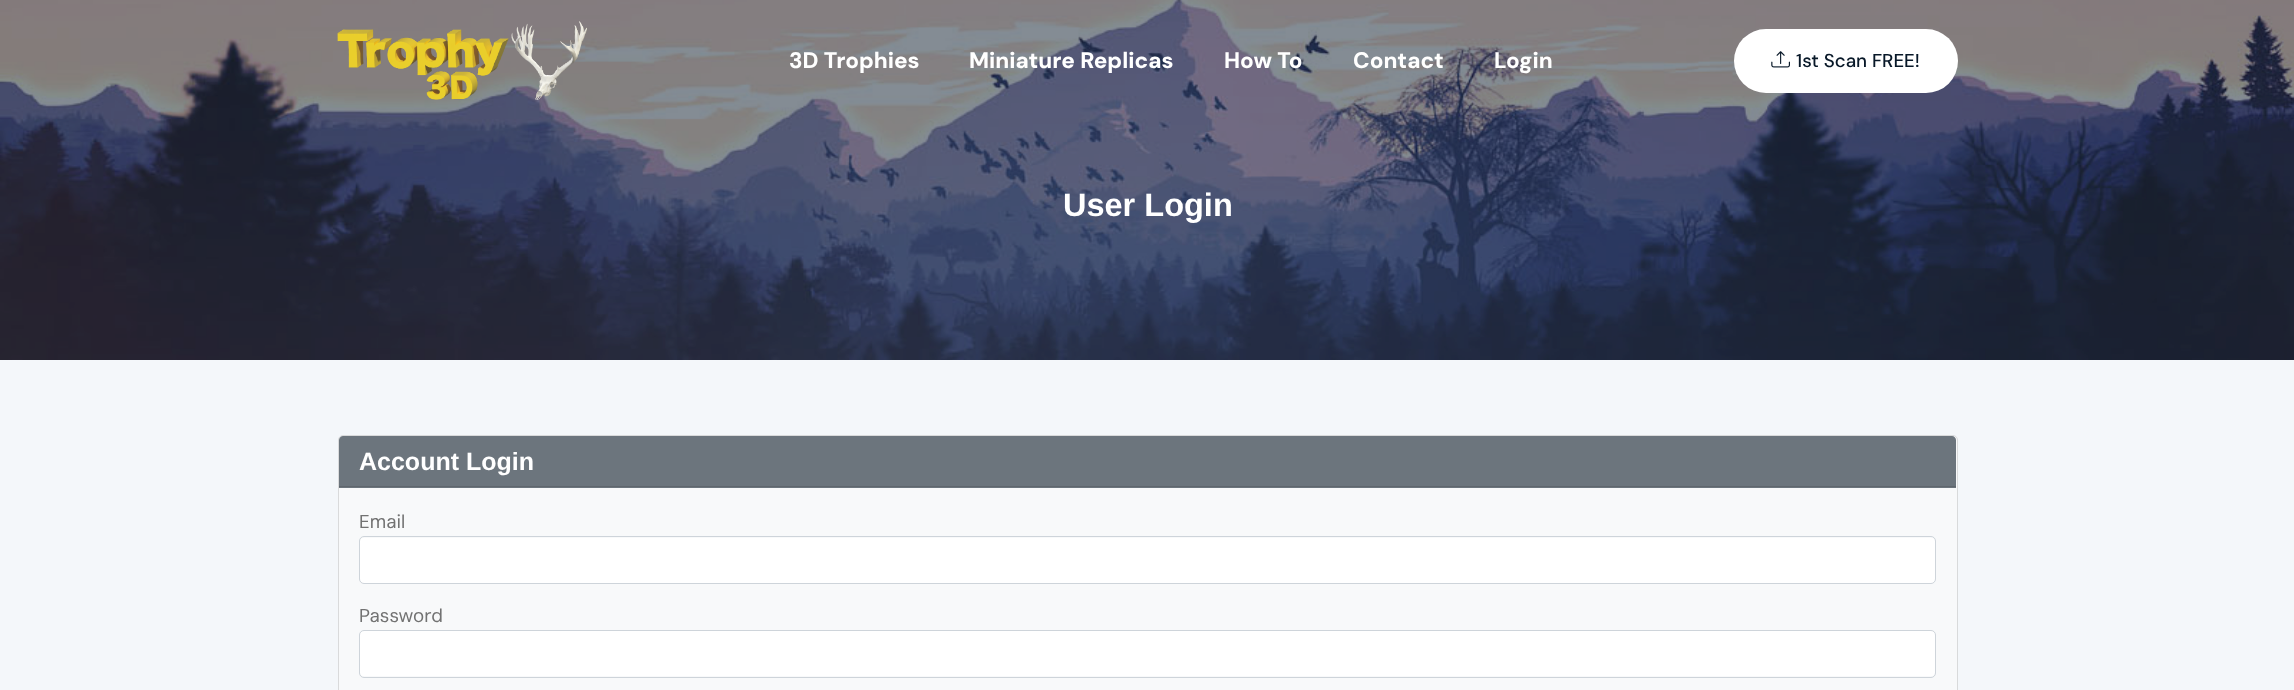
<svg xmlns="http://www.w3.org/2000/svg" width="2294" height="690">
	<rect width="100%" height="100%" fill="#F4F7FA" />
	<image x="0" y="0" width="2294" height="360" href="assets/img3.png" />
	<image x="337" y="21" width="250" height="79" href="assets/img1.png" />
	<g font-family="DM Sans" font-size="22.5" font-weight="800" fill="#FFFFFF">
		<text x="789" y="68">3D Trophies</text>
		<text x="969" y="68">Miniature Replicas</text>
		<text x="1224" y="68">How To</text>
		<text x="1353" y="68">Contact</text>
		<text x="1494" y="68">Login</text>
	</g>
	<rect x="1734" y="29" width="224" height="64" rx="32" fill="#FFFFFF" />
	<image x="1771" y="51" width="19" height="17" href="assets/img2.png" />
	<text x="1796" y="67" font-family="DM Sans" font-size="18.75" font-weight="500" fill="#081828">1st Scan FREE!</text>
	<text x="1063" y="216" font-family="Liberation Sans" font-size="32.5" font-weight="700" fill="#FFFFFF">User Login</text>
	<rect x="338.5" y="435.5" width="1619" height="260" rx="4.5" fill="#F8F9FA" stroke="#D9DADB" />
	<path d="M343 436H1952C1954 436 1956 438 1956 440V488H339V440C339 438 341 436 343 436Z" fill="#6C757D" />
	<rect x="339" y="486" width="1617" height="1" fill="#5F666D" />
	<text x="359" y="470" font-family="Liberation Sans" font-size="25" font-weight="700" fill="#FFFFFF">Account Login</text>
	<text x="359" y="528" font-family="DM Sans" font-size="18.75" fill="#727272">Email</text>
	<rect x="360" y="538" width="1575" height="45" rx="4" fill="#FFFFFF" />
	<rect x="359.5" y="536.5" width="1576" height="47" rx="4.5" fill="none" stroke="#CED4DA" />
	<text x="359" y="622" font-family="DM Sans" font-size="18.75" fill="#727272">Password</text>
	<rect x="360" y="631" width="1575" height="45" rx="4" fill="#FFFFFF" />
	<rect x="359.5" y="630.5" width="1576" height="47" rx="4.5" fill="none" stroke="#CED4DA" />
</svg>
